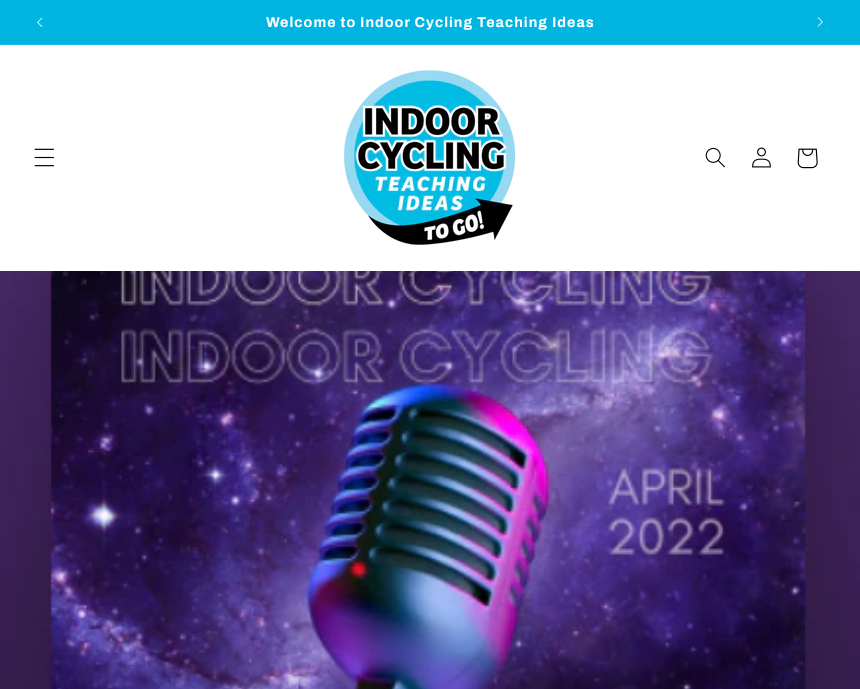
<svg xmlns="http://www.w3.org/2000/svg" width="860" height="689">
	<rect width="100%" height="100%" fill="#FFFFFF" />
	<rect x="0" y="0" width="860" height="44" fill="#00B5E2" />
	<rect x="0" y="44" width="860" height="1" fill="#14BBE4" />
	<image x="37" y="17" width="6" height="10" href="assets/img1.png" />
	<text x="266" y="27" font-family="Archivo" font-size="14.3" font-weight="700" letter-spacing="1.05" fill="#FFFFFF">Welcome to Indoor Cycling Teaching Ideas</text>
	<image x="817" y="17" width="6" height="10" href="assets/img2.png" />
	<image x="34" y="148" width="20" height="19" href="assets/img3.png" />
	<image x="344" y="70" width="172" height="175" href="assets/img4.png" />
	<image x="705" y="147" width="20" height="21" href="assets/img5.png" />
	<image x="752" y="147" width="19" height="21" href="assets/img6.png" />
	<image x="797" y="148" width="21" height="21" href="assets/img7.png" />
	<image x="0" y="271" width="860" height="418" href="assets/img8.png" />
</svg>
